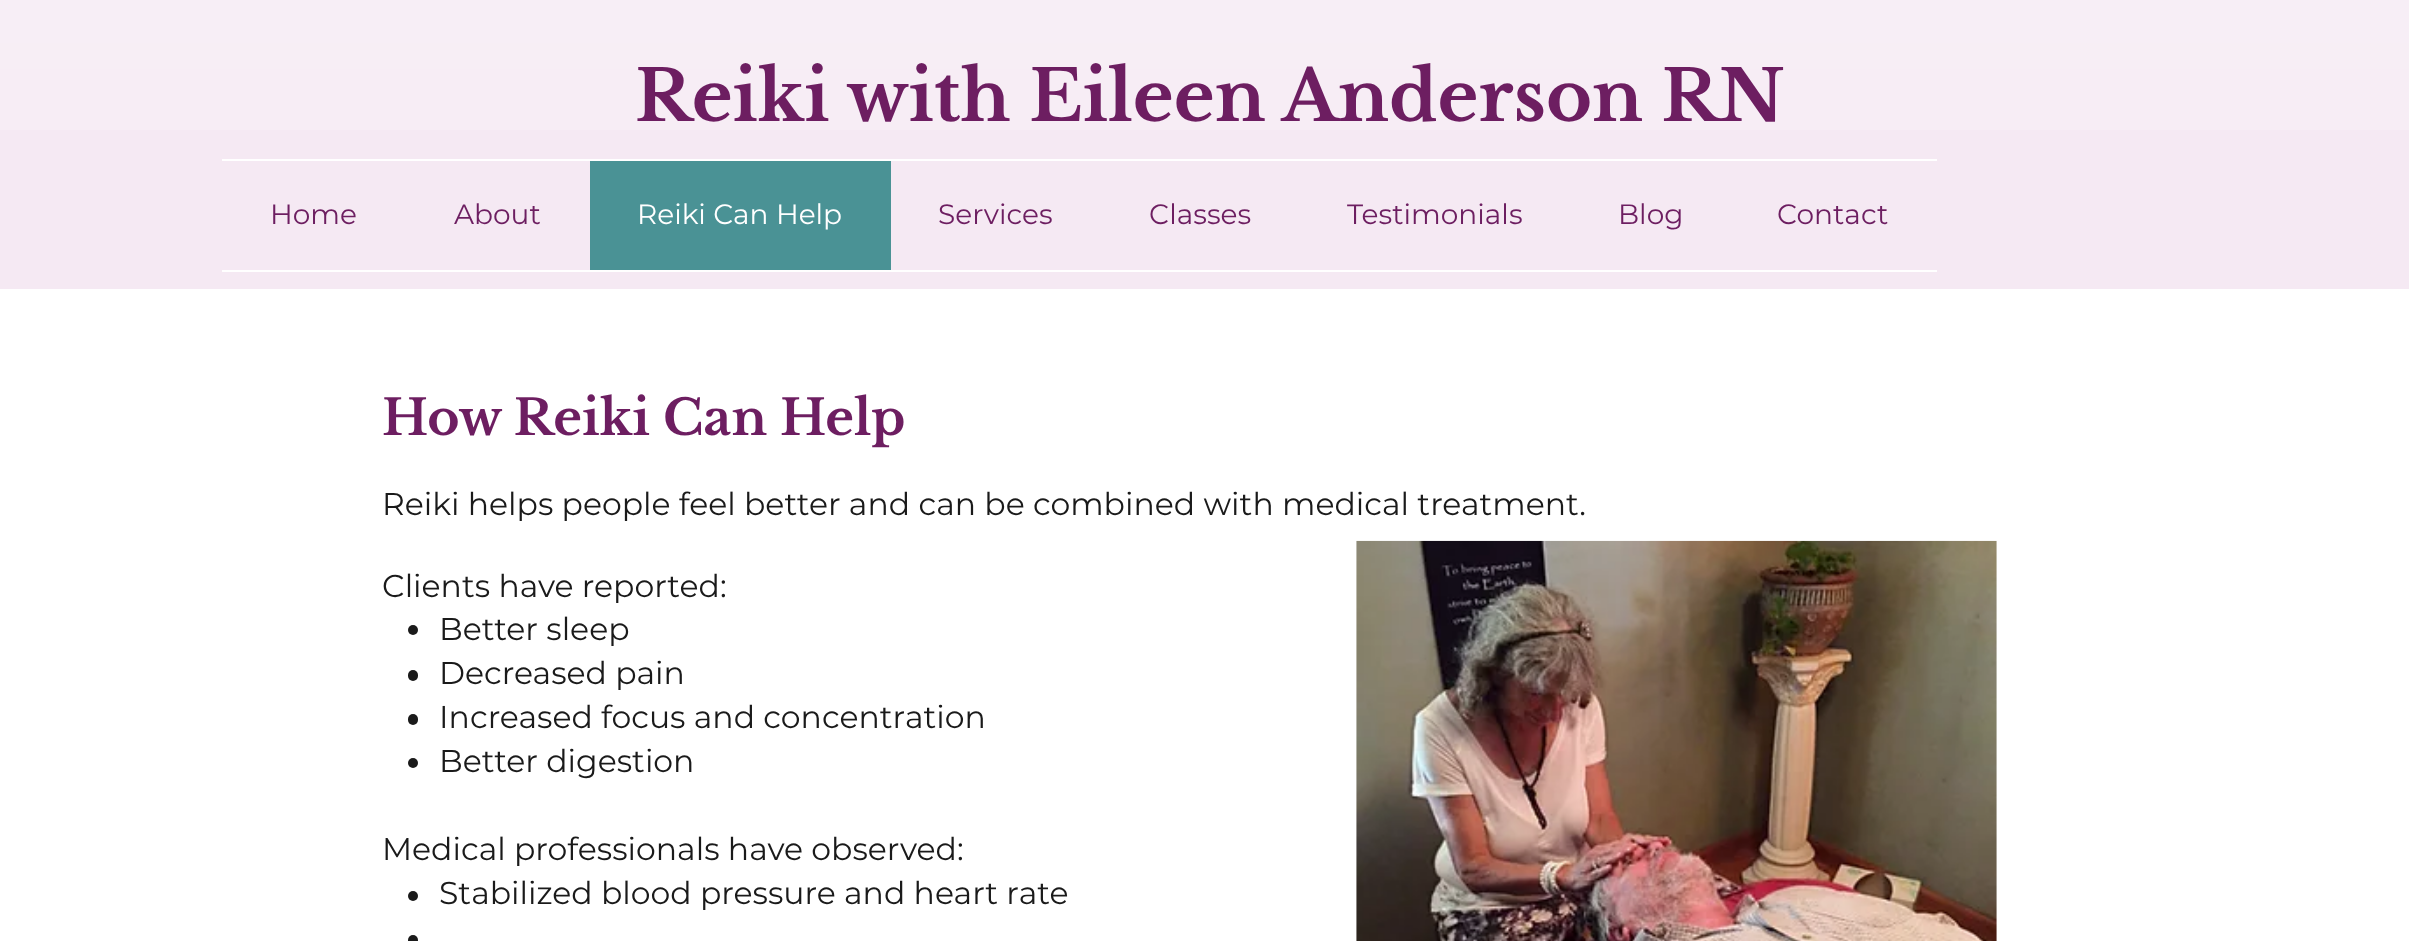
<svg xmlns="http://www.w3.org/2000/svg" width="2409" height="941">
	<rect width="100%" height="100%" fill="#FFFFFF" />
	<rect x="0" y="0" width="2409" height="289" fill="#F5E9F3" />
	<image x="0" y="0" width="2409" height="130" href="assets/img1.png" />
	<text x="635" y="121" font-family="Libre Baskerville" font-size="70" font-weight="700" fill="#6D1E61">Reiki with Eileen Anderson RN</text>
	<rect x="222" y="159" width="1715" height="2" fill="#FFFFFF" />
	<rect x="222" y="270" width="1715" height="2" fill="#FFFFFF" />
	<g font-family="Montserrat" font-size="28" fill="#6D1E61">
		<text x="270" y="224">Home</text>
		<text x="454" y="224">About</text>
	</g>
	<rect x="590" y="161" width="301" height="109" fill="#4A9295" />
	<text x="637" y="224" font-family="Montserrat" font-size="28" fill="#FFFFFF">Reiki Can Help</text>
	<g font-family="Montserrat" font-size="28" fill="#6D1E61">
		<text x="938" y="224">Services</text>
		<text x="1149" y="224">Classes</text>
		<text x="1347" y="224">Testimonials</text>
		<text x="1618" y="224">Blog</text>
		<text x="1777" y="224">Contact</text>
	</g>
	<text x="382" y="435" font-family="Libre Baskerville" font-size="49" font-weight="700" fill="#6D1E61">How Reiki Can Help</text>
	<g font-family="Montserrat" font-size="31.5" fill="#1A1A1A">
		<text x="382" y="515">Reiki helps people feel better and can be combined with medical treatment.</text>
		<text x="382" y="597">Clients have reported:</text>
	</g>
	<circle cx="413" cy="630" r="5" fill="#1A1A1A" />
	<text x="439" y="640" font-family="Montserrat" font-size="31.5" fill="#1A1A1A">Better sleep</text>
	<rect x="408" y="670" width="10" height="11" rx="5" fill="#1A1A1A" />
	<text x="439" y="684" font-family="Montserrat" font-size="31.5" fill="#1A1A1A">Decreased pain</text>
	<rect x="408" y="714" width="10" height="11" rx="5" fill="#1A1A1A" />
	<text x="439" y="728" font-family="Montserrat" font-size="31.5" fill="#1A1A1A">Increased focus and concentration</text>
	<circle cx="413" cy="763" r="5" fill="#1A1A1A" />
	<g font-family="Montserrat" font-size="31.5" fill="#1A1A1A">
		<text x="439" y="772">Better digestion</text>
		<text x="382" y="860">Medical professionals have observed:</text>
	</g>
	<circle cx="413" cy="896" r="5" fill="#1A1A1A" />
	<text x="439" y="904" font-family="Montserrat" font-size="31.5" fill="#1A1A1A">Stabilized blood pressure and heart rate</text>
	<circle cx="413" cy="940" r="5" fill="#1A1A1A" />
	<image x="1356" y="540" width="641" height="401" href="assets/img2.png" />
</svg>
